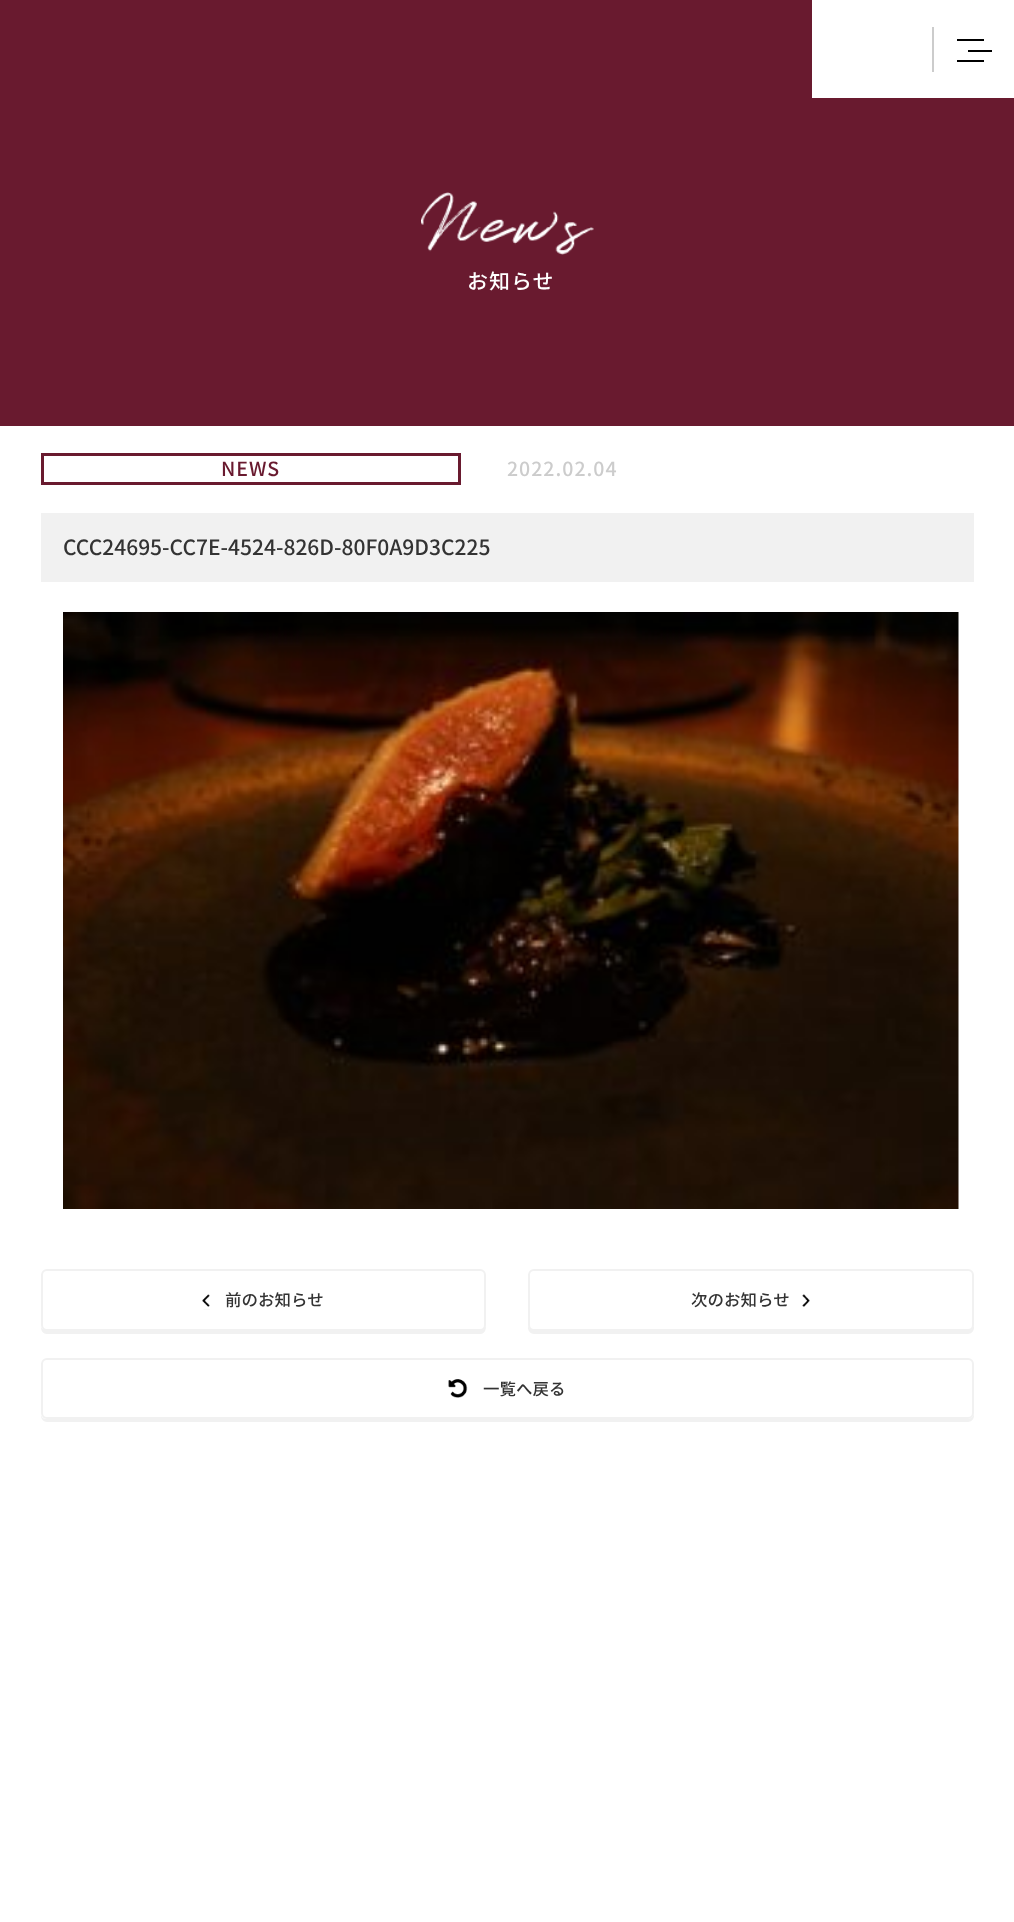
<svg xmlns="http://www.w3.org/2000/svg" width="1014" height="1922">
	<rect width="100%" height="100%" fill="#FFFFFF" />
	<rect x="0" y="0" width="1014" height="426" fill="#691A2F" />
	<rect x="812" y="0" width="202" height="98" fill="#FFFFFF" />
	<rect x="932" y="27" width="2" height="45" fill="#CCCCCC" />
	<rect x="957" y="39" width="27" height="2" fill="#000000" />
	<rect x="968" y="50" width="24" height="2" fill="#000000" />
	<rect x="957" y="60" width="27" height="2" fill="#000000" />
	<image x="421" y="192" width="173" height="63" href="assets/img1.png" />
	<text x="467" y="289" font-family="Noto Sans JP" font-size="21" font-weight="500" letter-spacing="1" fill="#FFFFFF">お知らせ</text>
	<rect x="42.5" y="454.5" width="417" height="29" fill="none" stroke="#691A2F" stroke-width="3" />
	<text x="221" y="476" font-family="Noto Sans JP" font-size="19.5" font-weight="500" letter-spacing="1" fill="#691A2F">NEWS</text>
	<text x="507" y="476" font-family="Noto Sans JP" font-size="19.5" font-weight="500" letter-spacing="1" fill="#CCCCCC">2022.02.04</text>
	<rect x="41" y="513" width="933" height="69" fill="#F1F1F1" />
	<text x="63" y="555" font-family="Noto Sans JP" font-size="21" font-weight="500" fill="#333333">CCC24695-CC7E-4524-826D-80F0A9D3C225</text>
	<image x="63" y="612" width="896" height="597" href="assets/img2.png" />
	<path d="M41 1327C41 1331 43 1334 47 1334H481C486 1333 486 1328 486 1324C486 1328 483 1330 480 1330H46C44 1330 42 1329 41 1327Z" fill="#F1F1F1" />
	<rect x="42" y="1270" width="443" height="60" rx="5" fill="#FFFFFF" stroke="#F1F1F1" stroke-width="2" />
	<image x="202" y="1294" width="8" height="16" href="assets/img3.png" />
	<text x="225" y="1306" font-family="Noto Sans JP" font-size="16.5" font-weight="500" fill="#333333">前のお知らせ</text>
	<path d="M528 1324V1328C528 1331 531 1334 534 1334H968C971 1334 974 1331 974 1328V1278V1276V1324C974 1328 971 1330 968 1330H534C531 1330 528 1328 528 1324Z" fill="#F1F1F1" />
	<rect x="529" y="1270" width="444" height="60" rx="5" fill="#FFFFFF" stroke="#F1F1F1" stroke-width="2" />
	<text x="691" y="1306" font-family="Noto Sans JP" font-size="16.5" font-weight="500" fill="#333333">次のお知らせ</text>
	<image x="802" y="1294" width="8" height="13" href="assets/img4.png" />
	<path d="M41 1415V1416C41 1419 44 1422 47 1422H968C971 1422 974 1419 974 1416V1367V1365V1413C974 1416 971 1419 968 1419H46C44 1419 42 1418 41 1415Z" fill="#F1F1F1" />
	<rect x="42" y="1359" width="931" height="59" rx="5" fill="#FFFFFF" stroke="#F1F1F1" stroke-width="2" />
	<image x="448" y="1379" width="20" height="19" href="assets/img5.png" />
	<text x="483" y="1395" font-family="Noto Sans JP" font-size="16.5" font-weight="500" fill="#333333">一覧へ戻る</text>
</svg>
